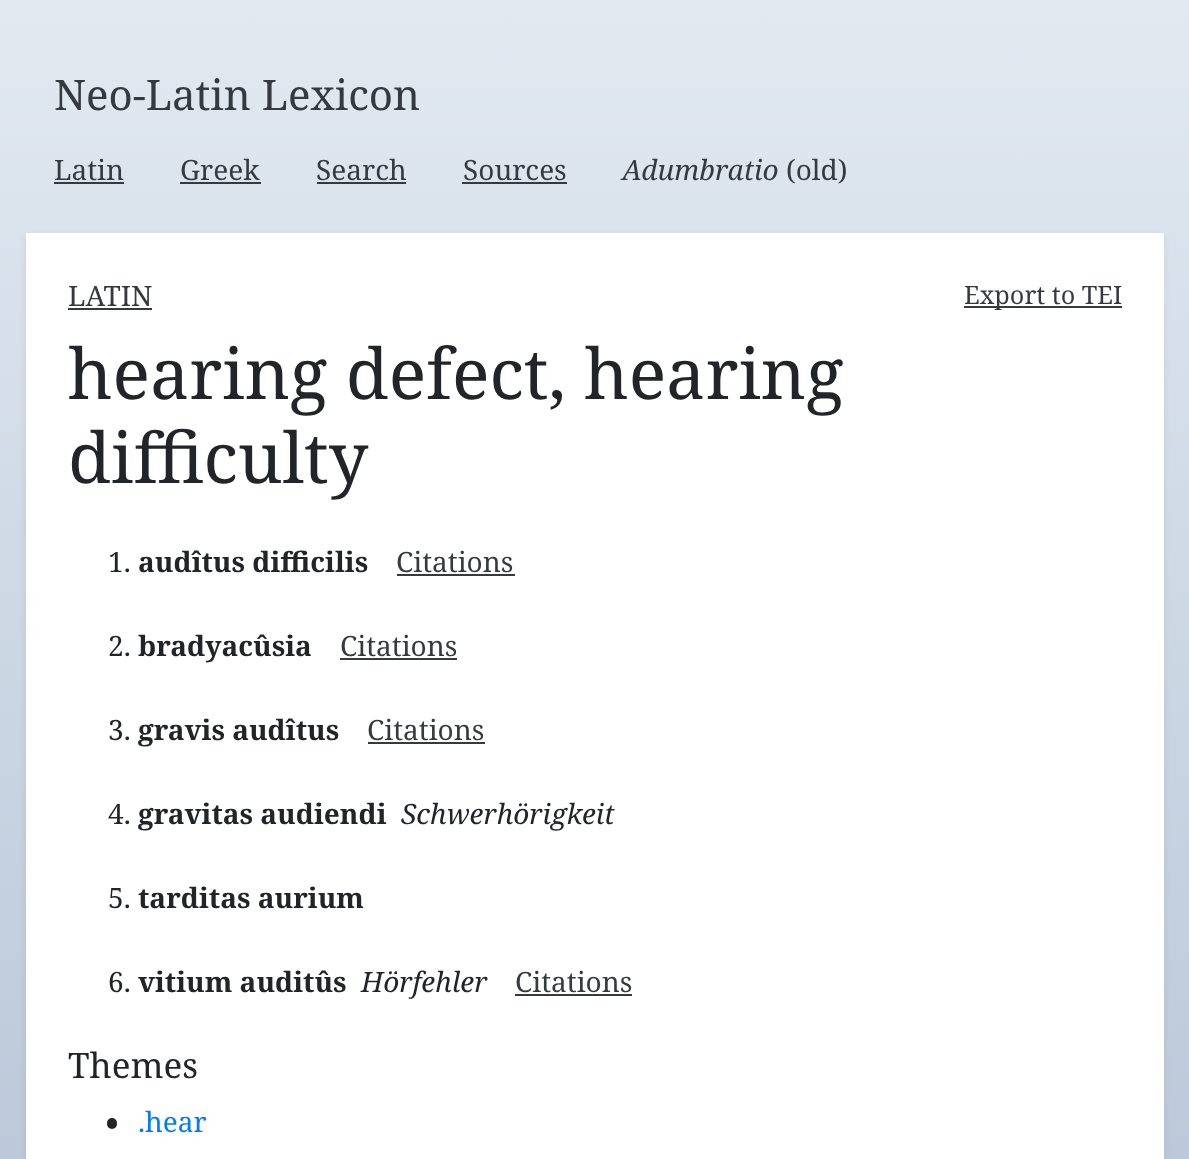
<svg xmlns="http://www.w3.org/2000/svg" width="1189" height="1159">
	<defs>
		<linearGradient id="g1" gradientUnits="userSpaceOnUse" x1="595" y1="0" x2="595" y2="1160"><stop offset="0" stop-color="#E2E9F1" /><stop offset="1" stop-color="#BBC9DA" /></linearGradient>
	</defs>
	<rect width="100%" height="100%" fill="#FFFFFF" />
	<rect x="0" y="0" width="1189" height="1159" fill="url(#g1)" />
	<text x="54" y="110" font-family="Noto Serif" font-size="42" fill="#343A40">Neo-Latin Lexicon</text>
	<text x="54" y="180" font-family="Noto Serif" font-size="28" fill="#343A40">Latin</text>
	<rect x="54" y="182" width="70" height="2" fill="#343A40" />
	<text x="180" y="180" font-family="Noto Serif" font-size="28" fill="#343A40">Greek</text>
	<rect x="180" y="182" width="81" height="2" fill="#343A40" />
	<text x="316" y="180" font-family="Noto Serif" font-size="28" fill="#343A40">Search</text>
	<rect x="317" y="182" width="89" height="2" fill="#343A40" />
	<text x="463" y="180" font-family="Noto Serif" font-size="28" fill="#343A40">Sources</text>
	<rect x="462" y="182" width="105" height="2" fill="#343A40" />
	<text x="622" y="180" font-family="Noto Serif" font-size="28" font-style="italic" fill="#343A40">Adumbratio</text>
	<text x="786" y="180" font-family="Noto Serif" font-size="28" fill="#343A40">(old)</text>
	<rect x="26" y="236" width="1138" height="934" fill="#000000" fill-opacity="0.07" filter="blur(3.5px)" />
	<rect x="26" y="233" width="1138" height="926" fill="#FFFFFF" />
	<text x="68" y="306" font-family="Noto Serif" font-size="28" fill="#343A40">LATIN</text>
	<rect x="68" y="308" width="84" height="2" fill="#343A40" />
	<rect x="964" y="306" width="158" height="2" fill="#343A40" />
	<text x="964" y="304" font-family="Noto Serif" font-size="25.25" fill="#343A40">Export to TEI</text>
	<g font-family="Noto Serif" font-size="70" fill="#212529">
		<text x="68" y="399">hearing defect, hearing</text>
		<text x="68" y="483">difficulty</text>
	</g>
	<text x="108" y="572" font-family="Noto Serif" font-size="28" fill="#212529">1.</text>
	<text x="138" y="572" font-family="Noto Serif" font-size="28" font-weight="700" fill="#212529">audîtus difficilis</text>
	<text x="396" y="572" font-family="Noto Serif" font-size="28" fill="#343A40">Citations</text>
	<rect x="397" y="574" width="118" height="2" fill="#343A40" />
	<text x="108" y="656" font-family="Noto Serif" font-size="28" fill="#212529">2.</text>
	<text x="138" y="656" font-family="Noto Serif" font-size="28" font-weight="700" fill="#212529">bradyacûsia</text>
	<text x="340" y="656" font-family="Noto Serif" font-size="28" fill="#343A40">Citations</text>
	<rect x="340" y="658" width="117" height="2" fill="#343A40" />
	<text x="108" y="740" font-family="Noto Serif" font-size="28" fill="#212529">3.</text>
	<text x="138" y="740" font-family="Noto Serif" font-size="28" font-weight="700" fill="#212529">gravis audîtus</text>
	<text x="367" y="740" font-family="Noto Serif" font-size="28" fill="#343A40">Citations</text>
	<rect x="368" y="742" width="117" height="2" fill="#343A40" />
	<text x="108" y="824" font-family="Noto Serif" font-size="28" fill="#212529">4.</text>
	<text x="138" y="824" font-family="Noto Serif" font-size="28" font-weight="700" fill="#212529">gravitas audiendi</text>
	<text x="401" y="824" font-family="Noto Serif" font-size="28" font-style="italic" fill="#212529">Schwerhörigkeit</text>
	<text x="108" y="908" font-family="Noto Serif" font-size="28" fill="#212529">5.</text>
	<text x="138" y="908" font-family="Noto Serif" font-size="28" font-weight="700" fill="#212529">tarditas aurium</text>
	<text x="108" y="992" font-family="Noto Serif" font-size="28" fill="#212529">6.</text>
	<text x="138" y="992" font-family="Noto Serif" font-size="28" font-weight="700" fill="#212529">vitium auditûs</text>
	<text x="361" y="992" font-family="Noto Serif" font-size="28" font-style="italic" fill="#212529">Hörfehler</text>
	<text x="515" y="992" font-family="Noto Serif" font-size="28" fill="#343A40">Citations</text>
	<rect x="515" y="994" width="117" height="2" fill="#343A40" />
	<text x="68" y="1078" font-family="Noto Serif" font-size="35" fill="#212529">Themes</text>
	<rect x="107" y="1118" width="10" height="11" rx="5" fill="#212529" />
	<text x="138" y="1132" font-family="Noto Serif" font-size="28" fill="#007BFF">.hear</text>
</svg>
